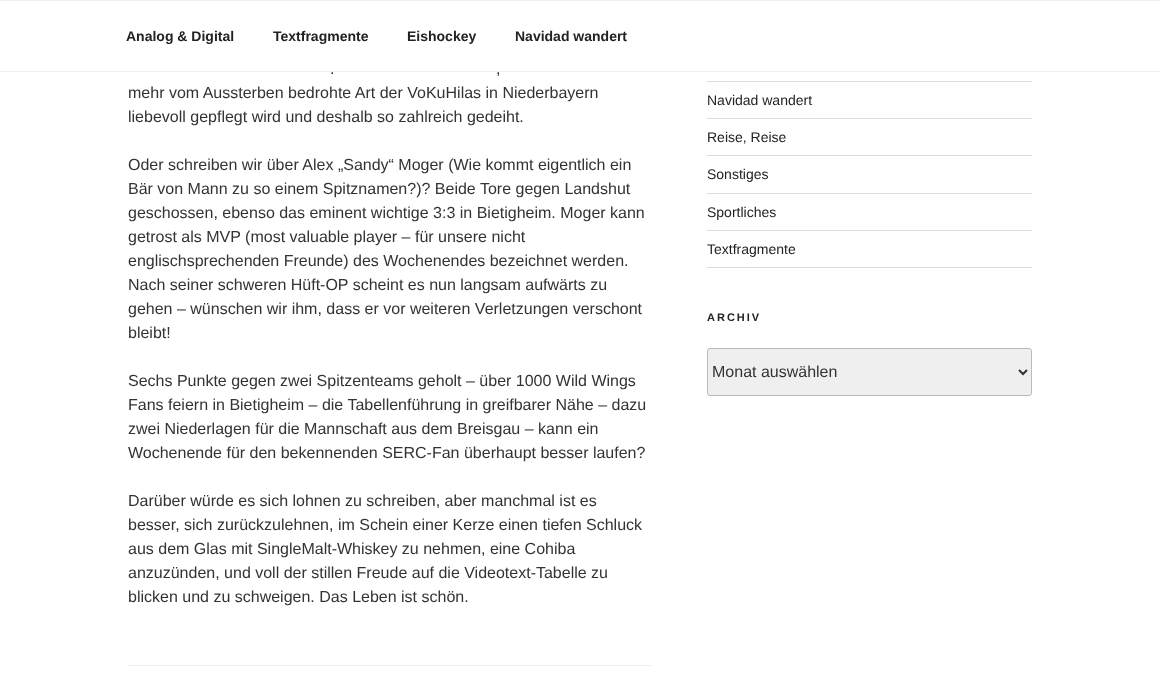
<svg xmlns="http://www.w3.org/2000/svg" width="1160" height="686">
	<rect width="100%" height="100%" fill="#FFFFFF" />
	<rect x="0" y="0" width="1160" height="1" fill="#EEEEEE" />
	<rect x="0" y="71" width="1160" height="1" fill="#EEEEEE" />
	<g font-family="Liberation Sans" font-size="14" font-weight="700" fill="#222222">
		<text x="126" y="41">Analog &amp; Digital</text>
		<text x="273" y="41">Textfragmente</text>
		<text x="407" y="41">Eishockey</text>
		<text x="515" y="41">Navidad wandert</text>
	</g>
	<g font-family="Liberation Sans" font-size="16" fill="#333333">
		<text x="330" y="74">.</text>
		<text x="496" y="74">,</text>
		<text x="128" y="98">mehr vom Aussterben bedrohte Art der VoKuHilas in Niederbayern</text>
		<text x="128" y="122">liebevoll gepflegt wird und deshalb so zahlreich gedeiht.</text>
		<text x="128" y="170">Oder schreiben wir über Alex „Sandy“ Moger (Wie kommt eigentlich ein</text>
		<text x="128" y="194">Bär von Mann zu so einem Spitznamen?)? Beide Tore gegen Landshut</text>
		<text x="128" y="218">geschossen, ebenso das eminent wichtige 3:3 in Bietigheim. Moger kann</text>
		<text x="128" y="242">getrost als MVP (most valuable player – für unsere nicht</text>
		<text x="128" y="266">englischsprechenden Freunde) des Wochenendes bezeichnet werden.</text>
		<text x="128" y="290">Nach seiner schweren Hüft-OP scheint es nun langsam aufwärts zu</text>
		<text x="128" y="314">gehen – wünschen wir ihm, dass er vor weiteren Verletzungen verschont</text>
		<text x="128" y="338">bleibt!</text>
		<text x="128" y="386">Sechs Punkte gegen zwei Spitzenteams geholt – über 1000 Wild Wings</text>
		<text x="128" y="410">Fans feiern in Bietigheim – die Tabellenführung in greifbarer Nähe – dazu</text>
		<text x="128" y="434">zwei Niederlagen für die Mannschaft aus dem Breisgau – kann ein</text>
		<text x="128" y="458">Wochenende für den bekennenden SERC-Fan überhaupt besser laufen?</text>
		<text x="128" y="506">Darüber würde es sich lohnen zu schreiben, aber manchmal ist es</text>
		<text x="128" y="530">besser, sich zurückzulehnen, im Schein einer Kerze einen tiefen Schluck</text>
		<text x="128" y="554">aus dem Glas mit SingleMalt-Whiskey zu nehmen, eine Cohiba</text>
		<text x="128" y="578">anzuzünden, und voll der stillen Freude auf die Videotext-Tabelle zu</text>
		<text x="128" y="602">blicken und zu schweigen. Das Leben ist schön.</text>
	</g>
	<rect x="128" y="665" width="524" height="1" fill="#EEEEEE" />
	<rect x="707" y="81" width="325" height="1" fill="#DDDDDD" />
	<rect x="707" y="118" width="325" height="1" fill="#DDDDDD" />
	<text x="707" y="105" font-family="Liberation Sans" font-size="14" fill="#222222">Navidad wandert</text>
	<rect x="707" y="155" width="325" height="1" fill="#DDDDDD" />
	<text x="707" y="142" font-family="Liberation Sans" font-size="14" fill="#222222">Reise, Reise</text>
	<rect x="707" y="193" width="325" height="1" fill="#DDDDDD" />
	<text x="707" y="179" font-family="Liberation Sans" font-size="14" fill="#222222">Sonstiges</text>
	<rect x="707" y="230" width="325" height="1" fill="#DDDDDD" />
	<text x="707" y="217" font-family="Liberation Sans" font-size="14" fill="#222222">Sportliches</text>
	<rect x="707" y="267" width="325" height="1" fill="#DDDDDD" />
	<text x="707" y="254" font-family="Liberation Sans" font-size="14" fill="#222222">Textfragmente</text>
	<text x="707" y="321" font-family="Liberation Sans" font-size="11" font-weight="700" letter-spacing="2" fill="#222222">ARCHIV</text>
	<rect x="707.5" y="348.5" width="324" height="47" rx="2.5" fill="#EFEFEF" stroke="#BBBBBB" />
	<path d="M1019 370L1023 374L1027 370" fill="none" stroke="#333333" stroke-width="2" />
	<text x="712" y="377" font-family="Liberation Sans" font-size="16" fill="#333333">Monat auswählen</text>
</svg>
